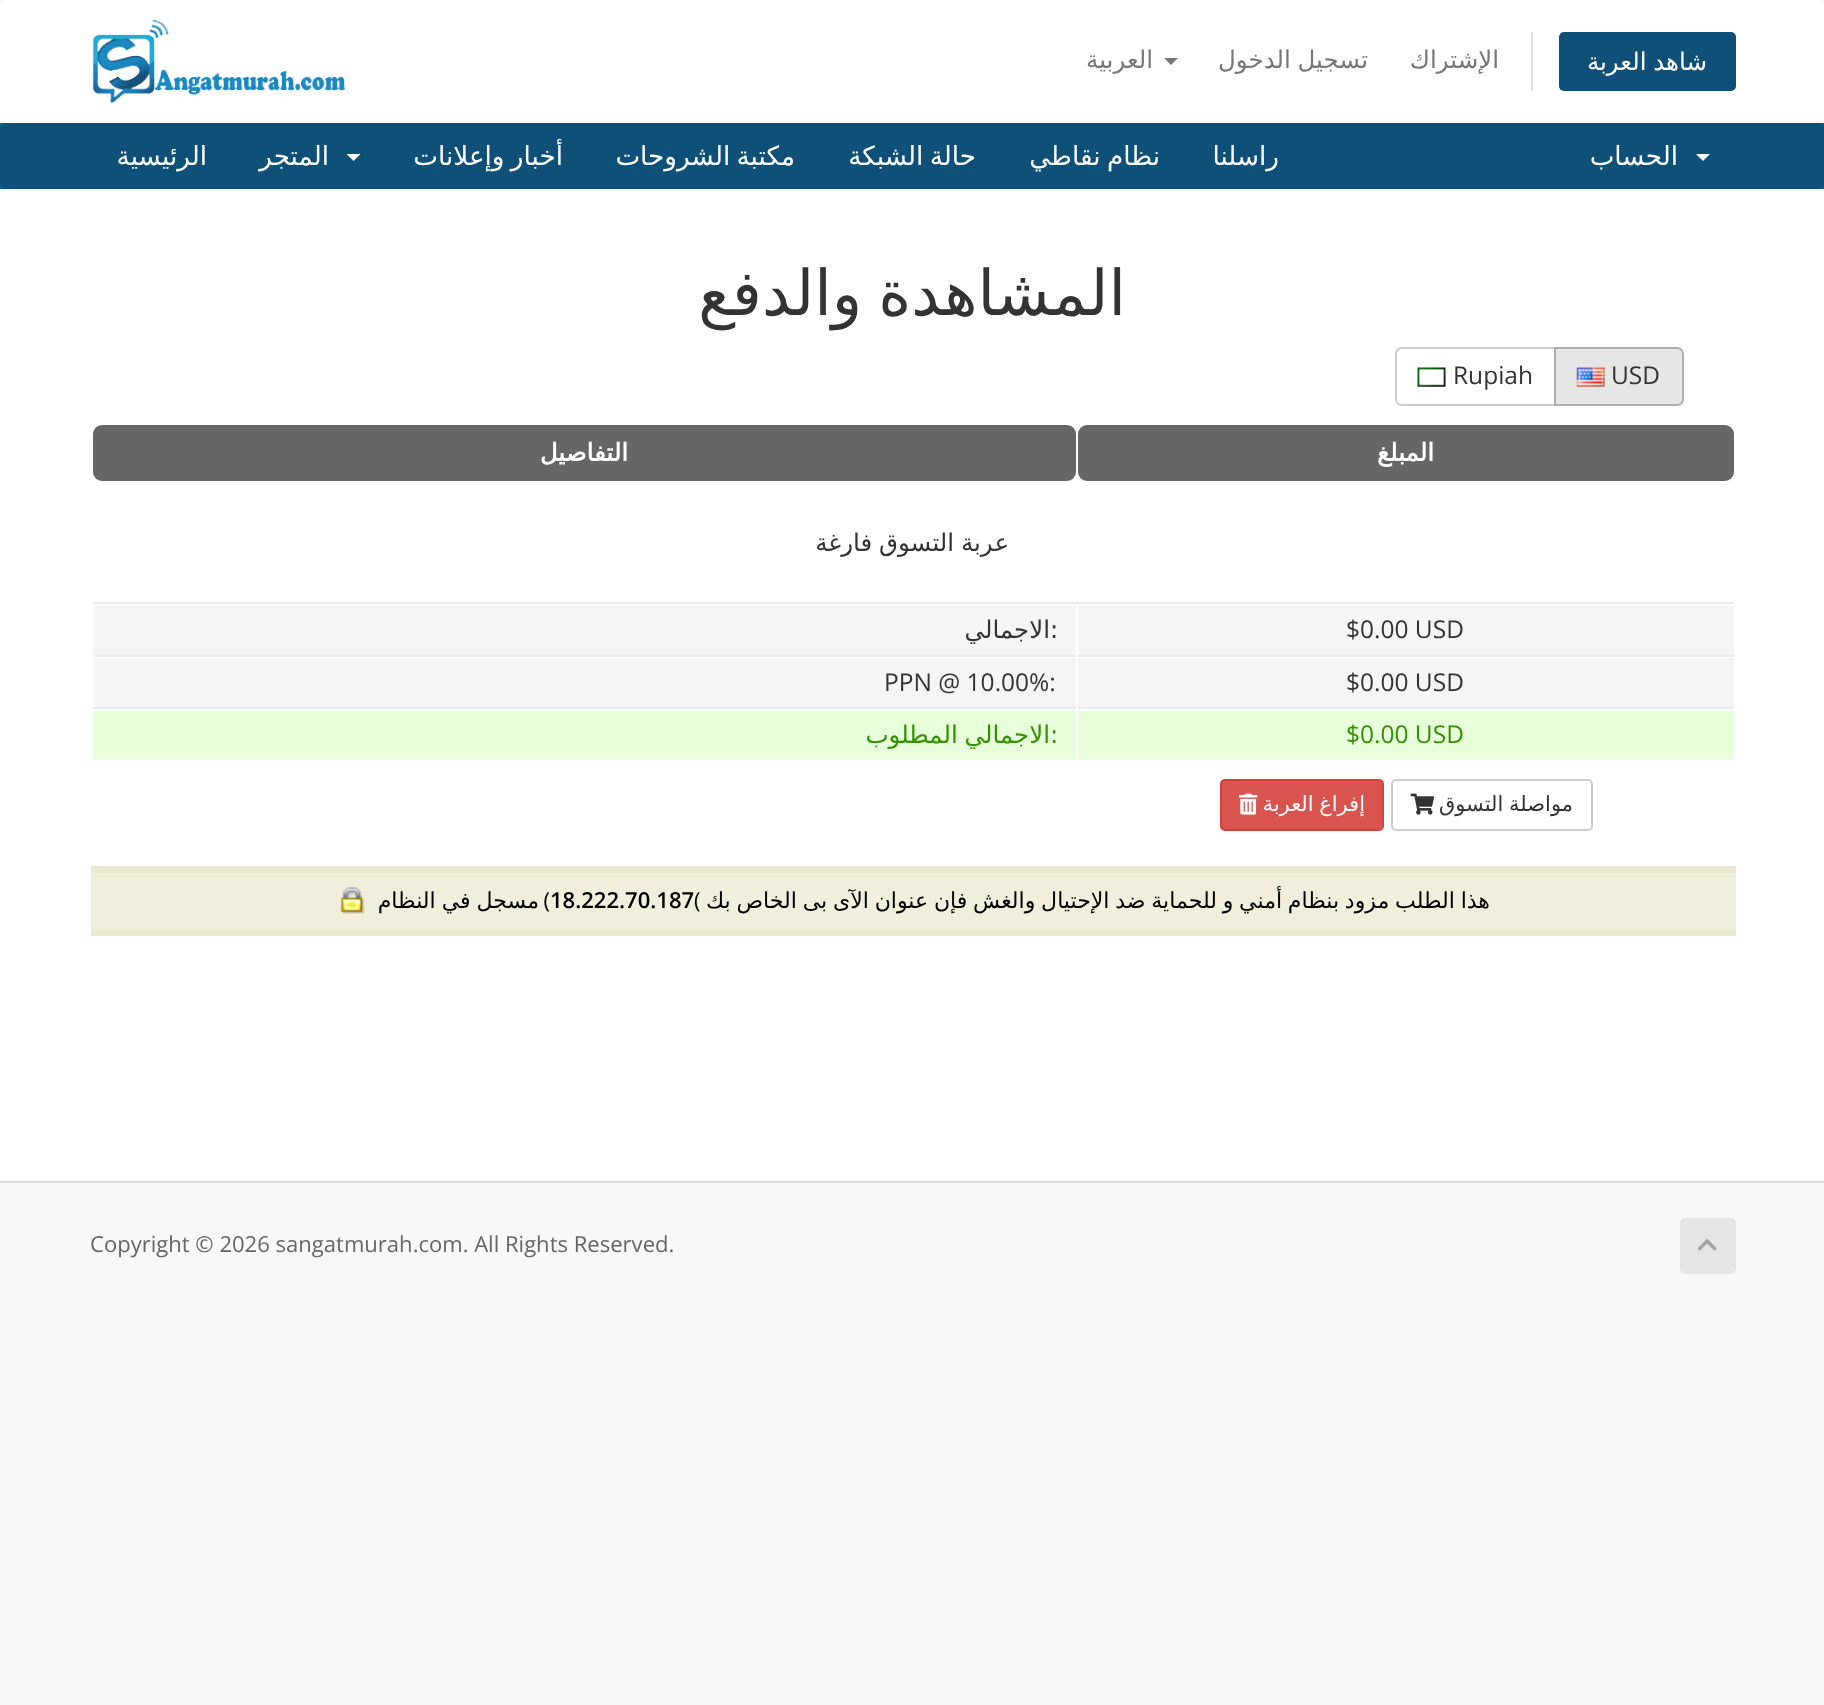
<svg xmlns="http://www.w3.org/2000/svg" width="1824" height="1705">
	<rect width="100%" height="100%" fill="#F8F8F8" />
	<path d="M9 0H1816C1821 0 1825 4 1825 9V123H0V9C0 4 4 0 9 0Z" fill="#FFFFFF" />
	<rect x="1531" y="32" width="2" height="59" fill="#DDDDDD" />
	<rect x="1559" y="32" width="177" height="59" rx="5" fill="#0E5077" />
	<text x="1707" y="70" word-spacing="-1" font-family="DejaVu Sans" font-size="24.5" direction="rtl" fill="#FFFFFF">شاهد العربة</text>
	<g font-family="DejaVu Sans" font-size="24.5" direction="rtl" fill="#777777">
		<text x="1499" y="68">الإشتراك</text>
		<text x="1368" y="68" word-spacing="-1">تسجيل الدخول</text>
	</g>
	<path d="M1164 58H1178L1171 65Z" fill="#777777" />
	<text x="1153" y="68" font-family="DejaVu Sans" font-size="24.5" direction="rtl" fill="#777777">العربية</text>
	<image x="92" y="19" width="253" height="84" href="assets/img1.png" />
	<rect x="0" y="123" width="1824" height="66" fill="#006687" />
	<rect x="0" y="123" width="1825" height="66" rx="7" fill="#0E5077" />
	<path d="M1696 154H1710L1703 161Z" fill="#FFFFFF" />
	<g font-family="DejaVu Sans" font-size="26.25" direction="rtl" fill="#FFFFFF">
		<text x="1678" y="165">الحساب</text>
		<text x="1279" y="165">راسلنا</text>
		<text x="1160" y="165" word-spacing="-2">نظام نقاطي</text>
		<text x="976" y="165" word-spacing="-2">حالة الشبكة</text>
		<text x="795" y="165" word-spacing="-2">مكتبة الشروحات</text>
		<text x="563" y="165" word-spacing="-2">أخبار وإعلانات</text>
	</g>
	<path d="M346.5 154H360.5L353.5 161Z" fill="#FFFFFF" />
	<g font-family="DejaVu Sans" font-size="26.25" direction="rtl" fill="#FFFFFF">
		<text x="329" y="165">المتجر</text>
		<text x="207" y="165">الرئيسية</text>
	</g>
	<rect x="0" y="189" width="1824" height="992" fill="#FFFFFF" />
	<text x="1126" y="315" word-spacing="-4" font-family="DejaVu Sans" font-size="63" direction="rtl" fill="#333333">المشاهدة والدفع</text>
	<path d="M1402 348H1555V405H1402C1398.5 405 1396 402.5 1396 399V354C1396 350.5 1398.5 348 1402 348Z" fill="none" stroke="#CCCCCC" stroke-width="2" />
	<path d="M1555 348H1677C1680.5 348 1683 350.5 1683 354V399C1683 402.5 1680.5 405 1677 405H1555Z" fill="#E6E6E6" stroke="#ADADAD" stroke-width="2" />
	<text x="1611" y="384" font-family="Open Sans" font-size="24.5" fill="#333333">USD</text>
	<image x="1576" y="367" width="29" height="20" href="assets/img2.png" />
	<text x="1453" y="384" font-family="Open Sans" font-size="24.5" fill="#333333">Rupiah</text>
	<image x="1417" y="367" width="29" height="20" href="assets/img3.png" />
	<rect x="1078" y="425" width="656" height="56" rx="9" fill="#666666" />
	<text x="1434" y="461" font-family="DejaVu Sans" font-size="24.5" font-weight="700" direction="rtl" fill="#FFFFFF">المبلغ</text>
	<rect x="93" y="425" width="983" height="56" rx="9" fill="#666666" />
	<text x="628" y="461" font-family="DejaVu Sans" font-size="24.5" font-weight="700" direction="rtl" fill="#FFFFFF">التفاصيل</text>
	<rect x="93" y="602" width="1641" height="2" fill="#EBEBEB" />
	<text x="1009" y="551" word-spacing="-1" font-family="DejaVu Sans" font-size="24.5" direction="rtl" fill="#333333">عربة التسوق فارغة</text>
	<rect x="1078" y="606" width="656" height="49" fill="#F5F5F5" />
	<rect x="1078" y="655" width="656" height="2" fill="#EBEBEB" />
	<text x="1346" y="638" font-family="Open Sans" font-size="24.5" fill="#333333">$0.00 USD</text>
	<rect x="93" y="606" width="983" height="49" fill="#F5F5F5" />
	<rect x="93" y="655" width="983" height="2" fill="#EBEBEB" />
	<text x="1050" y="638" font-family="DejaVu Sans" font-size="24.5" fill="#333333">:</text>
	<text x="1050" y="638" font-family="DejaVu Sans" font-size="24.5" direction="rtl" fill="#333333">الاجمالي</text>
	<rect x="1078" y="658" width="656" height="49" fill="#F5F5F5" />
	<rect x="1078" y="707" width="656" height="2" fill="#EBEBEB" />
	<text x="1346" y="691" font-family="Open Sans" font-size="24.5" fill="#333333">$0.00 USD</text>
	<rect x="93" y="658" width="983" height="49" fill="#F5F5F5" />
	<rect x="93" y="707" width="983" height="2" fill="#EBEBEB" />
	<text x="884" y="691" font-family="Open Sans" font-size="24.5" fill="#333333">PPN @ 10.00%:</text>
	<rect x="1078" y="711" width="656" height="49" fill="#E7FFDA" />
	<text x="1346" y="743" font-family="Open Sans" font-size="24.5" fill="#339100">$0.00 USD</text>
	<rect x="93" y="711" width="983" height="49" fill="#E7FFDA" />
	<text x="1050" y="743" font-family="DejaVu Sans" font-size="24.5" fill="#339100">:</text>
	<text x="1050" y="743" word-spacing="-1" font-family="DejaVu Sans" font-size="24.5" direction="rtl" fill="#339100">الاجمالي المطلوب</text>
	<rect x="1392" y="780" width="200" height="50" rx="4" fill="none" stroke="#CCCCCC" stroke-width="2" />
	<text x="1573" y="811" word-spacing="-1" font-family="DejaVu Sans" font-size="21" direction="rtl" fill="#333333">مواصلة التسوق</text>
	<image x="1410" y="793" width="25" height="22" href="assets/img4.png" />
	<rect x="1221" y="780" width="162" height="50" rx="4" fill="#D9534F" stroke="#D43F3A" stroke-width="2" />
	<text x="1365" y="811" word-spacing="-1" font-family="DejaVu Sans" font-size="21" direction="rtl" fill="#FFFFFF">إفراغ العربة</text>
	<image x="1239" y="793" width="19" height="22" href="assets/img5.png" />
	<rect x="91" y="873" width="1645" height="56" fill="#F1EFDC" />
	<rect x="91" y="866" width="1645" height="7" fill="#EBE8CD" />
	<rect x="91" y="929" width="1645" height="7" fill="#EBE8CD" />
	<text x="1490" y="908" word-spacing="-1.25" font-family="DejaVu Sans" font-size="22.05" direction="rtl" fill="#000000">هذا الطلب مزود بنظام أمني و للحماية ضد الإحتيال والغش فإن عنوان الآى بى الخاص بك</text>
	<text x="694" y="908" font-family="Open Sans" font-size="22.05" fill="#000000">(</text>
	<text x="550" y="908" font-family="Open Sans" font-size="22.05" font-weight="600" fill="#000000">18.222.70.187</text>
	<text x="550" y="908" font-family="Open Sans" font-size="22.05" direction="rtl" fill="#000000">)</text>
	<text x="539" y="908" word-spacing="-1" font-family="DejaVu Sans" font-size="22.05" direction="rtl" fill="#000000">مسجل في النظام</text>
	<image x="340" y="887" width="25" height="27" href="assets/img6.png" />
	<rect x="0" y="1181" width="1824" height="2" fill="#DDDDDD" />
	<rect x="1680" y="1218" width="56" height="56" rx="5" fill="#E5E5E5" />
	<image x="1697" y="1239" width="20" height="12" href="assets/img7.png" />
	<text x="90" y="1252" font-family="Open Sans" font-size="22.05" fill="#666666">Copyright © 2026 sangatmurah.com. All Rights Reserved.</text>
</svg>
